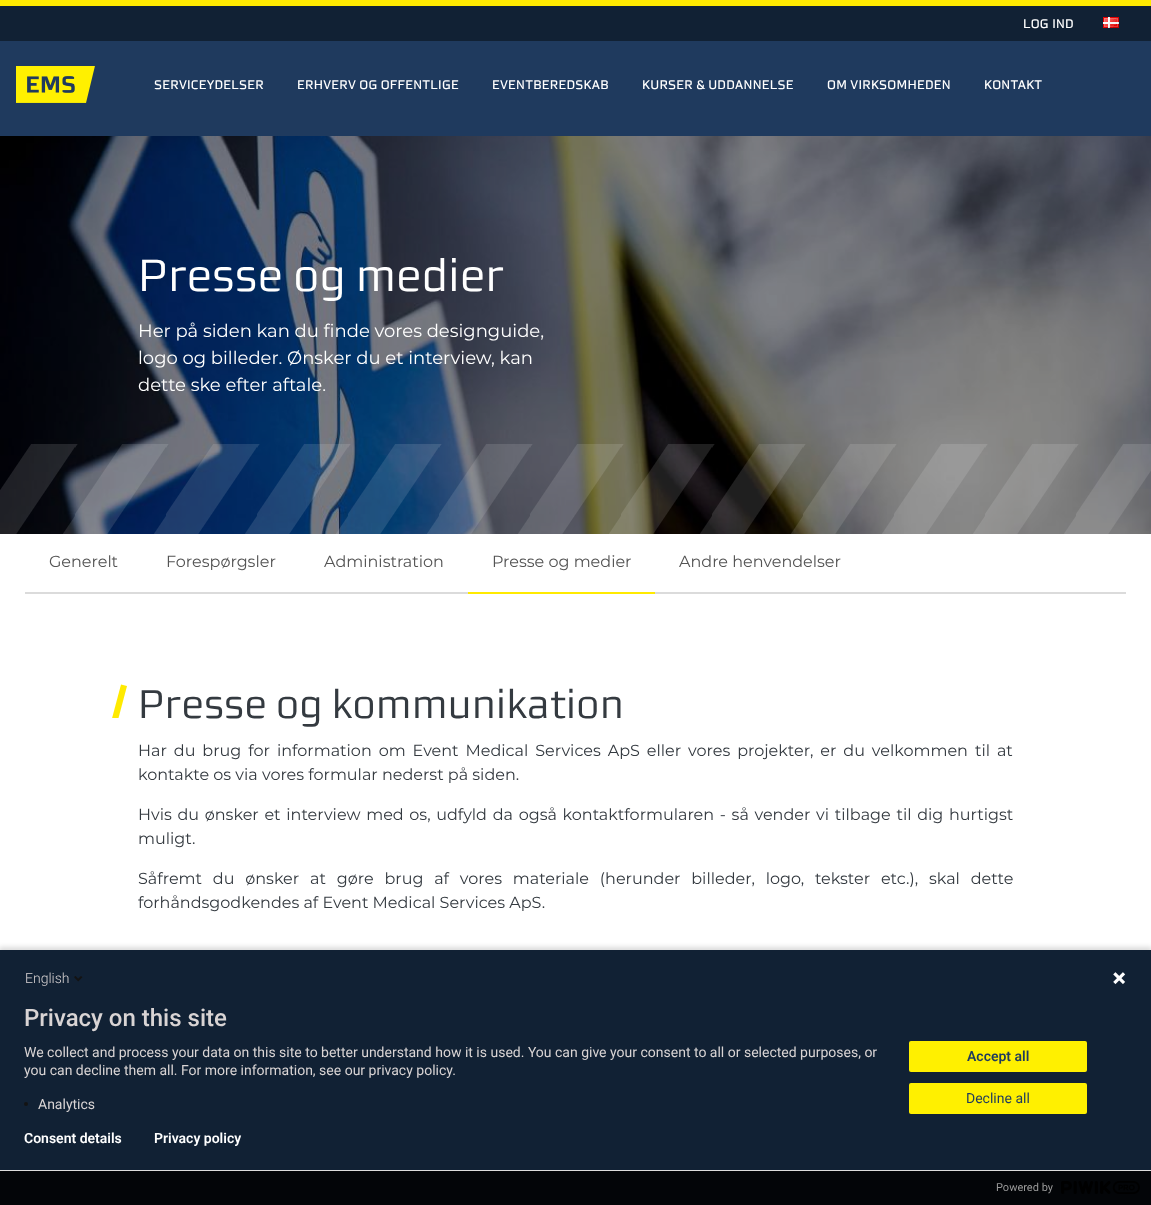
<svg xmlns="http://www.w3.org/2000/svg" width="1151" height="1205">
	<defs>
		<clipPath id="clip1"><rect x="106" y="683" width="40" height="35" /></clipPath>
	</defs>
	<rect width="100%" height="100%" fill="#FFFFFF" />
	<rect x="0" y="41" width="1151" height="95" fill="#1F3A5E" />
	<rect x="0" y="0" width="1151" height="6" fill="#FFEA00" />
	<rect x="0" y="6" width="1151" height="35" fill="#112134" />
	<text x="1023" y="28" font-family="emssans" font-size="12" font-weight="700" letter-spacing="0.6" fill="#FFFFFF">LOG IND</text>
	<image x="1103" y="17" width="16" height="11" href="assets/img1.png" />
	<image x="16" y="66" width="79" height="37" href="assets/img2.png" />
	<g font-family="emssans" font-size="12" font-weight="700" letter-spacing="0.6" fill="#FFFFFF">
		<text x="154" y="89">SERVICEYDELSER</text>
		<text x="297" y="89">ERHVERV OG OFFENTLIGE</text>
		<text x="492" y="89">EVENTBEREDSKAB</text>
		<text x="642" y="89">KURSER &amp; UDDANNELSE</text>
		<text x="827" y="89">OM VIRKSOMHEDEN</text>
		<text x="984" y="89">KONTAKT</text>
	</g>
	<image x="0" y="136" width="1151" height="398" href="assets/img3.png" />
	<text x="138" y="291" font-family="emssans" font-size="45" fill="#FFFFFF">Presse og medier</text>
	<g font-family="Montserrat" font-size="18" fill="#FFFFFF">
		<text x="138" y="337">Her på siden kan du finde vores designguide,</text>
		<text x="138" y="364">logo og billeder. Ønsker du et interview, kan</text>
		<text x="138" y="391">dette ske efter aftale.</text>
	</g>
	<image x="0" y="444" width="1151" height="90" href="assets/img4.png" />
	<g font-family="Montserrat" font-size="16" fill="#545454">
		<text x="49" y="567">Generelt</text>
		<text x="166" y="567">Forespørgsler</text>
		<text x="324" y="567">Administration</text>
	</g>
	<rect x="25" y="592" width="1101" height="2" fill="#DBDBDB" />
	<rect x="468" y="592" width="187" height="2" fill="#FFEA00" />
	<g font-family="Montserrat" font-size="16" fill="#545454">
		<text x="492" y="567">Presse og medier</text>
		<text x="679" y="567">Andre henvendelser</text>
	</g>
	<g clip-path="url(#clip1)">
		<path d="M121 684.5L127 686L118 720L112 718.5Z" fill="#FFEA00" />
	</g>
	<text x="138" y="718" font-family="emssans" font-size="40" fill="#343A40">Presse og kommunikation</text>
	<g font-family="Montserrat" font-size="16" fill="#343A40">
		<text x="138" y="756" word-spacing="2.75">Har du brug for information om Event Medical Services ApS eller vores projekter, er du velkommen til at</text>
		<text x="138" y="780">kontakte os via vores formular nederst på siden.</text>
		<text x="138" y="820" word-spacing="1.5">Hvis du ønsker et interview med os, udfyld da også kontaktformularen - så vender vi tilbage til dig hurtigst</text>
		<text x="138" y="844">muligt.</text>
		<text x="138" y="884" word-spacing="6.6">Såfremt du ønsker at gøre brug af vores materiale (herunder billeder, logo, tekster etc.), skal dette</text>
		<text x="138" y="908">forhåndsgodkendes af Event Medical Services ApS.</text>
	</g>
	<rect x="-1" y="947" width="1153" height="257" fill="#000000" fill-opacity="0.14" filter="blur(2.5px)" />
	<rect x="0" y="950" width="1151" height="220" fill="#112134" />
	<text x="25" y="983" font-family="Roboto" font-size="14" font-weight="300" fill="#D9D4D4">English</text>
	<image x="74" y="976" width="9" height="6" href="assets/img5.png" />
	<image x="1113" y="972" width="13" height="13" href="assets/img6.png" />
	<text x="24" y="1026" font-family="Roboto" font-size="24" font-weight="500" fill="#D9D4D4">Privacy on this site</text>
	<g font-family="Roboto" font-size="14" fill="#D9D4D4">
		<text x="24" y="1057">We collect and process your data on this site to better understand how it is used. You can give your consent to all or selected purposes, or</text>
		<text x="24" y="1075">you can decline them all. For more information, see our privacy policy.</text>
	</g>
	<circle cx="26" cy="1104" r="2" fill="#131313" />
	<text x="38" y="1109" font-family="Roboto" font-size="14" fill="#D9D4D4">Analytics</text>
	<rect x="909" y="1041" width="178" height="31" rx="2" fill="#FFF000" />
	<text x="967" y="1061" font-family="Roboto" font-size="14" font-weight="600" fill="#1F3A5E">Accept all</text>
	<rect x="909" y="1083" width="178" height="31" rx="2" fill="#FFF000" />
	<text x="966" y="1103" font-family="Roboto" font-size="14" fill="#1F3A5E">Decline all</text>
	<g font-family="Roboto" font-size="14" font-weight="600" fill="#FFFFFF">
		<text x="24" y="1143">Consent details</text>
		<text x="154" y="1143">Privacy policy</text>
	</g>
	<rect x="0" y="1171" width="1151" height="34" fill="#030508" />
	<rect x="0" y="1170" width="1151" height="1" fill="#DDDDDD" />
	<text x="996" y="1191" font-family="Roboto" font-size="11" fill="#999999">Powered by</text>
	<image x="1061" y="1181" width="79" height="13" href="assets/img7.png" />
</svg>
